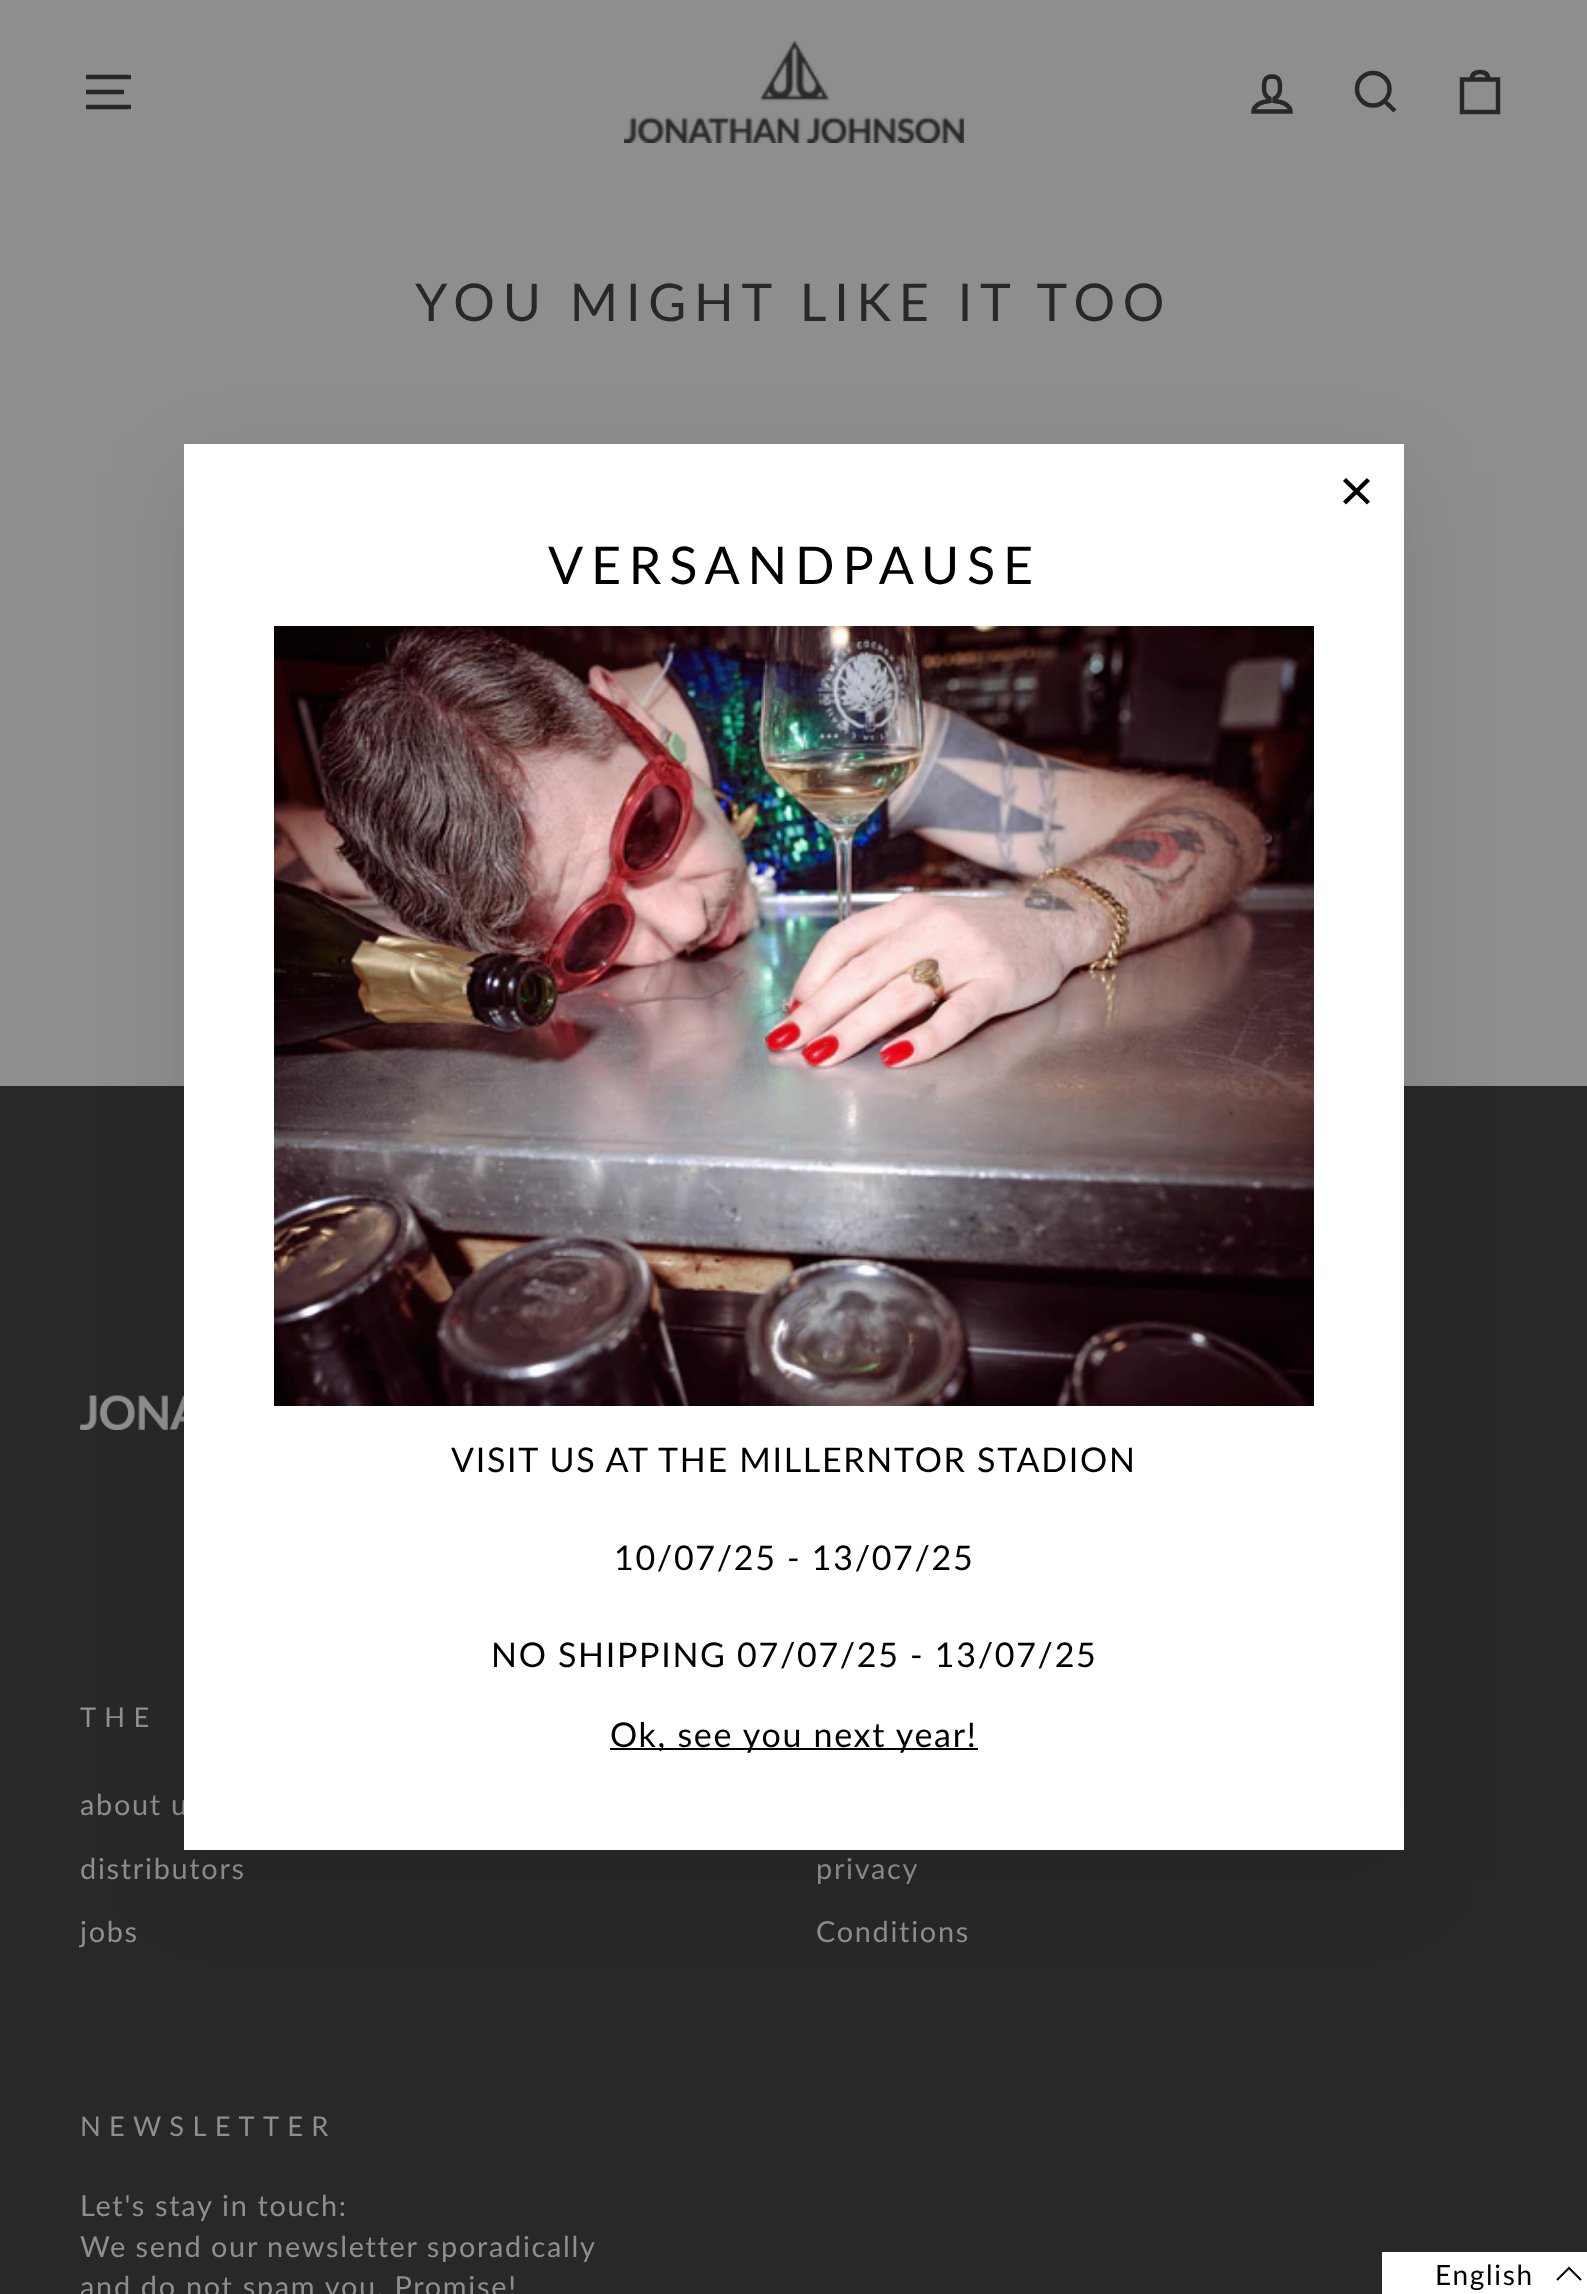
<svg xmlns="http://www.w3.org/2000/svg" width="1587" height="2294">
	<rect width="100%" height="100%" fill="#8E8E8C" />
	<path d="M86 77H131M86 92H124M86 107H131" fill="none" stroke="#282826" stroke-width="4.4" />
	<image x="624" y="41" width="340" height="102" href="assets/img1.png" />
	<path d="M1274.5 101V98.5C1277.5 97 1280 93 1280 88.5C1280 82 1280 76.5 1272 76.5C1264 76.5 1264 82 1264 88.5C1264 93 1266.5 97 1269.5 98.5V101C1260.5 101.5 1253.5 106 1253.5 111.5H1290.5C1290.5 106 1283.5 101.5 1274.5 101Z" fill="none" stroke="#282826" stroke-width="4.4" />
	<path d="M1389.5 89C1389.5 98 1382 105.5 1373 105.5C1364 105.5 1357 98 1357 89C1357 80 1364 73 1373 73C1382 73 1389.5 80 1389.5 89ZM1395 111L1384.5 101" fill="none" stroke="#282826" stroke-width="4.4" />
	<path d="M1462 79.5H1498V112H1462ZM1471.5 80C1471.5 73.5 1475.5 72 1480 72C1484.5 72 1488.5 73.5 1488.5 80" fill="none" stroke="#282826" stroke-width="4.4" />
	<text x="415" y="321" font-family="Lato" font-size="52" letter-spacing="7.8" fill="#282826">YOU MIGHT LIKE IT TOO</text>
	<rect x="0" y="1086" width="1587" height="1208" fill="#282826" />
	<image x="80" y="1395" width="104" height="35" href="assets/img2.png" />
	<text x="80" y="1727" font-family="Lato" font-size="27.25" letter-spacing="8.25" fill="#8E8E8C">THE</text>
	<g font-family="Lato" font-size="28.9" letter-spacing="1.7" fill="#8E8E8C">
		<text x="80" y="1815">about u</text>
		<text x="80" y="1879">distributors</text>
		<text x="80" y="1942">jobs</text>
		<text x="816" y="1879">privacy</text>
		<text x="816" y="1942">Conditions</text>
	</g>
	<text x="80" y="2136" font-family="Lato" font-size="27.25" letter-spacing="8.25" fill="#8E8E8C">NEWSLETTER</text>
	<g font-family="Lato" font-size="28.9" letter-spacing="1.7" fill="#8E8E8C">
		<text x="80" y="2216">Let's stay in touch:</text>
		<text x="80" y="2257" word-spacing="-0.5">We send our newsletter sporadically</text>
		<text x="80" y="2297">and do not spam you. Promise!</text>
	</g>
	<rect x="184" y="474" width="1220" height="1406" fill="#000000" fill-opacity="0.1" filter="blur(45px)" />
	<rect x="184" y="444" width="1220" height="1406" fill="#FFFFFF" />
	<path d="M1344.5 479.5L1368.5 503M1368.5 479.5L1344.5 503" fill="none" stroke="#000000" stroke-width="4.4" />
	<text x="548" y="584" font-family="Lato" font-size="52" letter-spacing="7.8" fill="#000000">VERSANDPAUSE</text>
	<image x="274" y="626" width="1040" height="780" href="assets/img3.png" />
	<g font-family="Lato" font-size="34" letter-spacing="1.7" fill="#000000">
		<text x="451" y="1472">VISIT US AT THE MILLERNTOR STADION</text>
		<text x="614" y="1570">10/07/25 - 13/07/25</text>
		<text x="491" y="1667">NO SHIPPING 07/07/25 - 13/07/25</text>
	</g>
	<rect x="610" y="1748" width="368" height="2" fill="#000000" />
	<text x="610" y="1747" font-family="Lato" font-size="34" letter-spacing="1.7" fill="#000000">Ok, see you next year!</text>
	<rect x="1382" y="2252" width="205" height="42" fill="#FFFFFF" />
	<text x="1435" y="2285" font-family="Lato" font-size="28" letter-spacing="1.7" fill="#000000">English</text>
	<path d="M1581 2280L1569 2268L1557 2280" fill="none" stroke="#000000" stroke-width="2" />
</svg>
